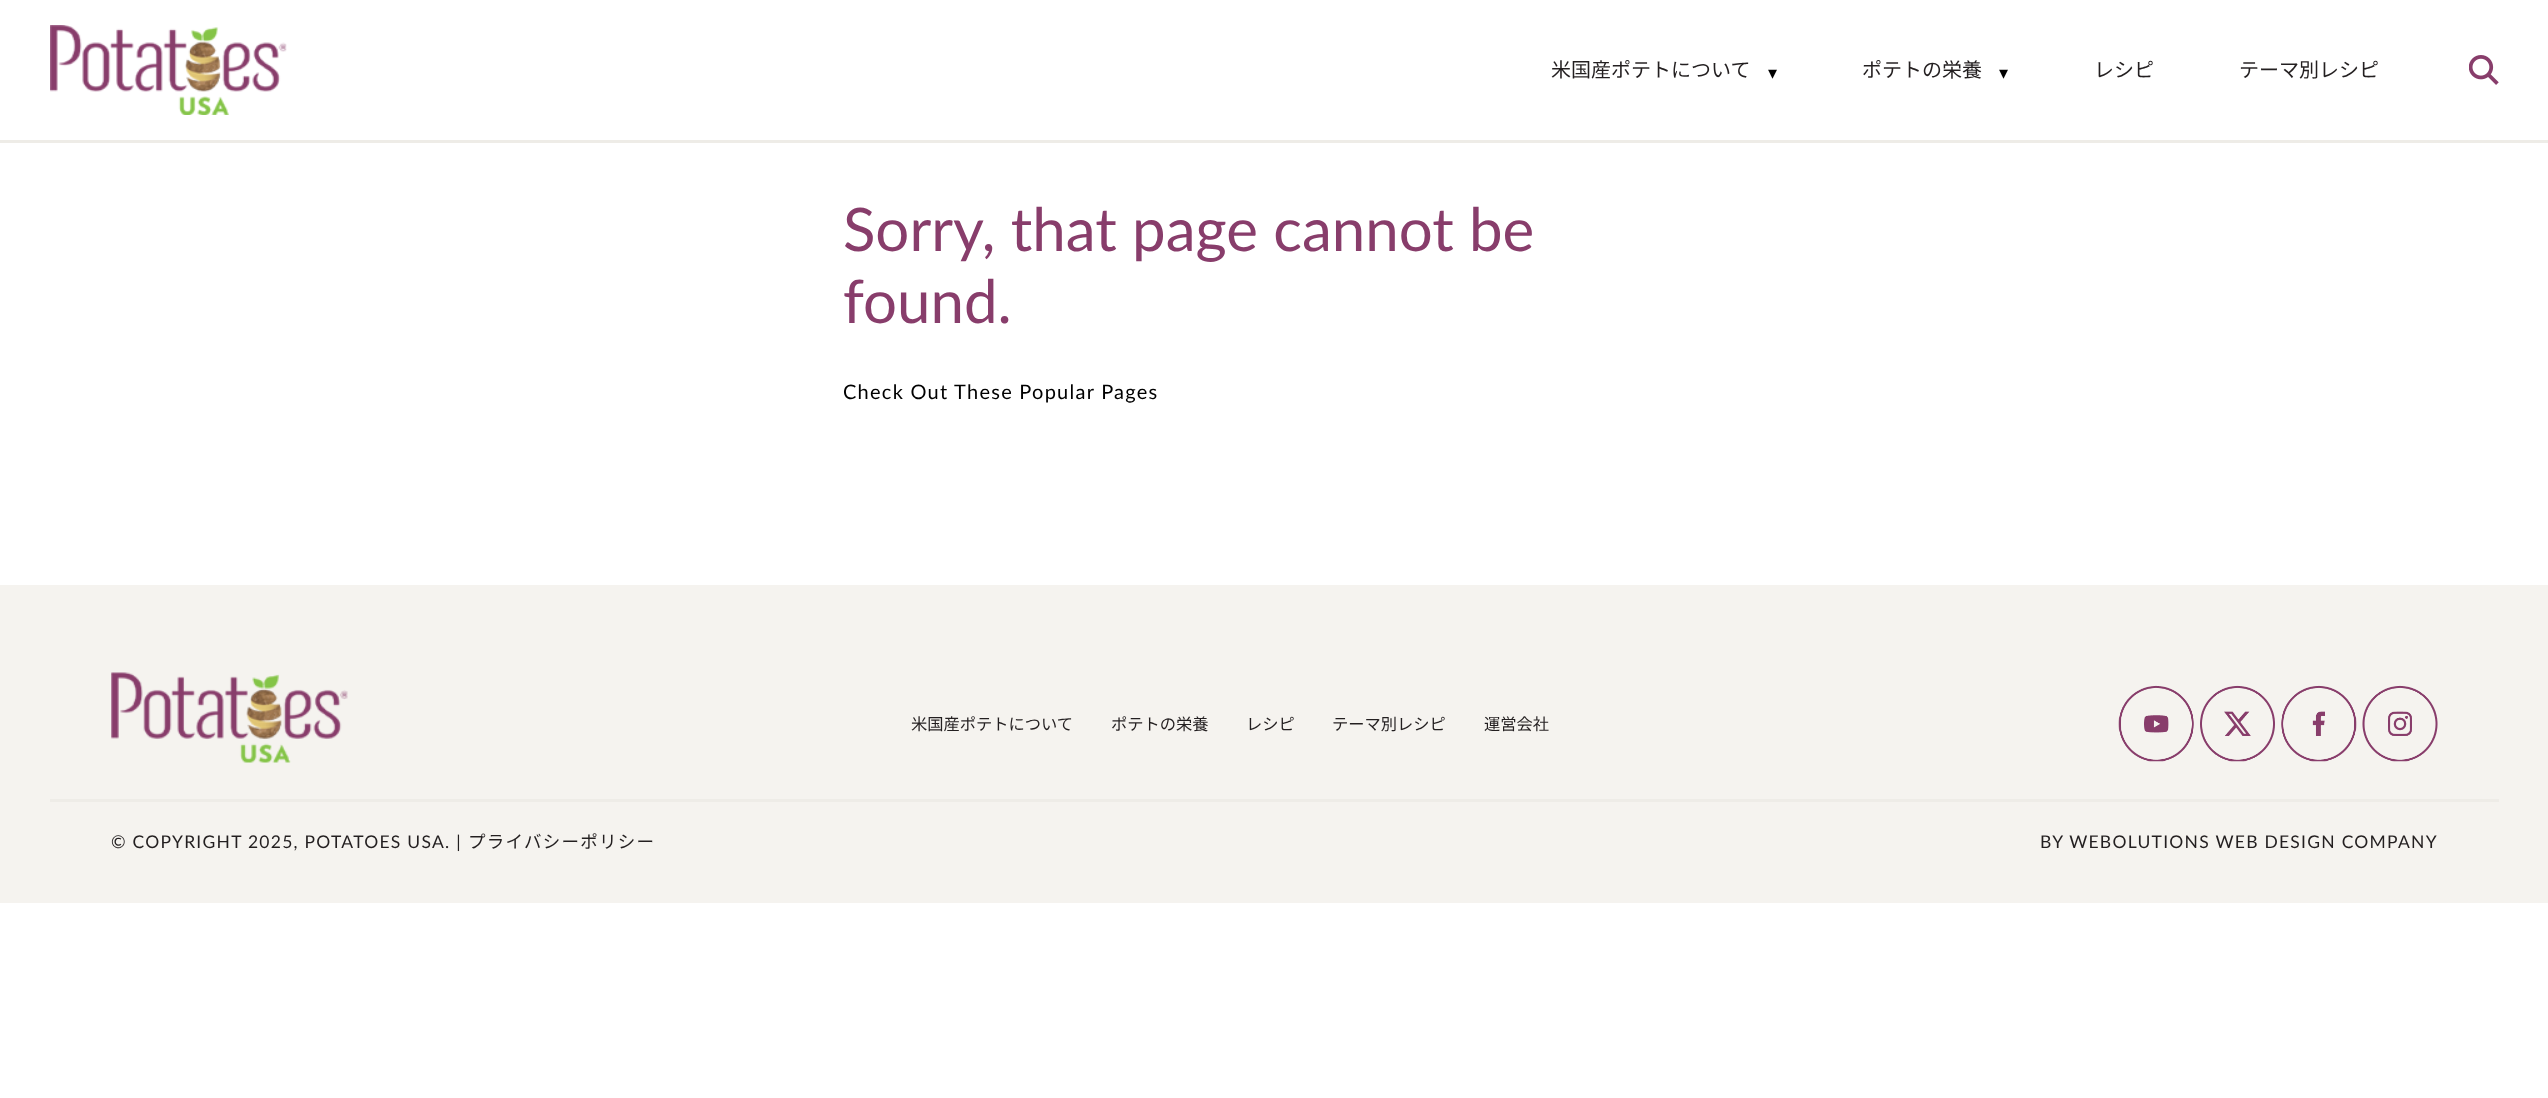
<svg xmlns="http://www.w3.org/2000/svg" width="2548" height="1098">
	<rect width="100%" height="100%" fill="#FFFFFF" />
	<rect x="0" y="140" width="2548" height="3" fill="#EEECE7" />
	<image x="50" y="25" width="237" height="90" href="assets/img1.png" />
	<text x="1551" y="77" font-family="Noto Sans JP" font-size="20" fill="#231F20">米国産ポテトについて</text>
	<text x="1768" y="79" font-family="DejaVu Sans" font-size="18" fill="#000000">▾</text>
	<text x="1862" y="77" font-family="Noto Sans JP" font-size="20" fill="#231F20">ポテトの栄養</text>
	<text x="1999" y="79" font-family="DejaVu Sans" font-size="18" fill="#000000">▾</text>
	<g font-family="Noto Sans JP" font-size="20" fill="#231F20">
		<text x="2094" y="77">レシピ</text>
		<text x="2239" y="77">テーマ別レシピ</text>
	</g>
	<image x="2469" y="55" width="30" height="30" href="assets/img2.png" />
	<g font-family="Lato" font-size="60" fill="#883D6B">
		<text x="843" y="251">Sorry, that page cannot be</text>
		<text x="843" y="323">found.</text>
	</g>
	<text x="843" y="399" font-family="Lato" font-size="20" letter-spacing="1.25" fill="#000000">Check Out These Popular Pages</text>
	<rect x="0" y="585" width="2548" height="318" fill="#F5F3EF" />
	<image x="111" y="672" width="237" height="91" href="assets/img3.png" />
	<g font-family="Noto Sans JP" font-size="16.25" fill="#231F20">
		<text x="911" y="730">米国産ポテトについて</text>
		<text x="1111" y="730">ポテトの栄養</text>
		<text x="1246" y="730">レシピ</text>
		<text x="1332" y="730">テーマ別レシピ</text>
		<text x="1484" y="730">運営会社</text>
	</g>
	<image x="2118" y="685" width="76" height="77" href="assets/img4.png" />
	<image x="2200" y="685" width="75" height="77" href="assets/img5.png" />
	<image x="2281" y="685" width="76" height="77" href="assets/img6.png" />
	<image x="2362" y="685" width="76" height="77" href="assets/img7.png" />
	<rect x="50" y="799" width="2449" height="3" fill="#EEECE7" />
	<text x="111" y="848" font-family="Lato" font-size="17.5" letter-spacing="1.25" fill="#231F20">© COPYRIGHT 2025, POTATOES USA. |</text>
	<text x="468" y="848" font-family="Noto Sans JP" font-size="17.5" letter-spacing="1.25" fill="#231F20">プライバシーポリシー</text>
	<text x="2040" y="848" font-family="Lato" font-size="17.5" letter-spacing="1.25" fill="#231F20">BY WEBOLUTIONS WEB DESIGN COMPANY</text>
</svg>
